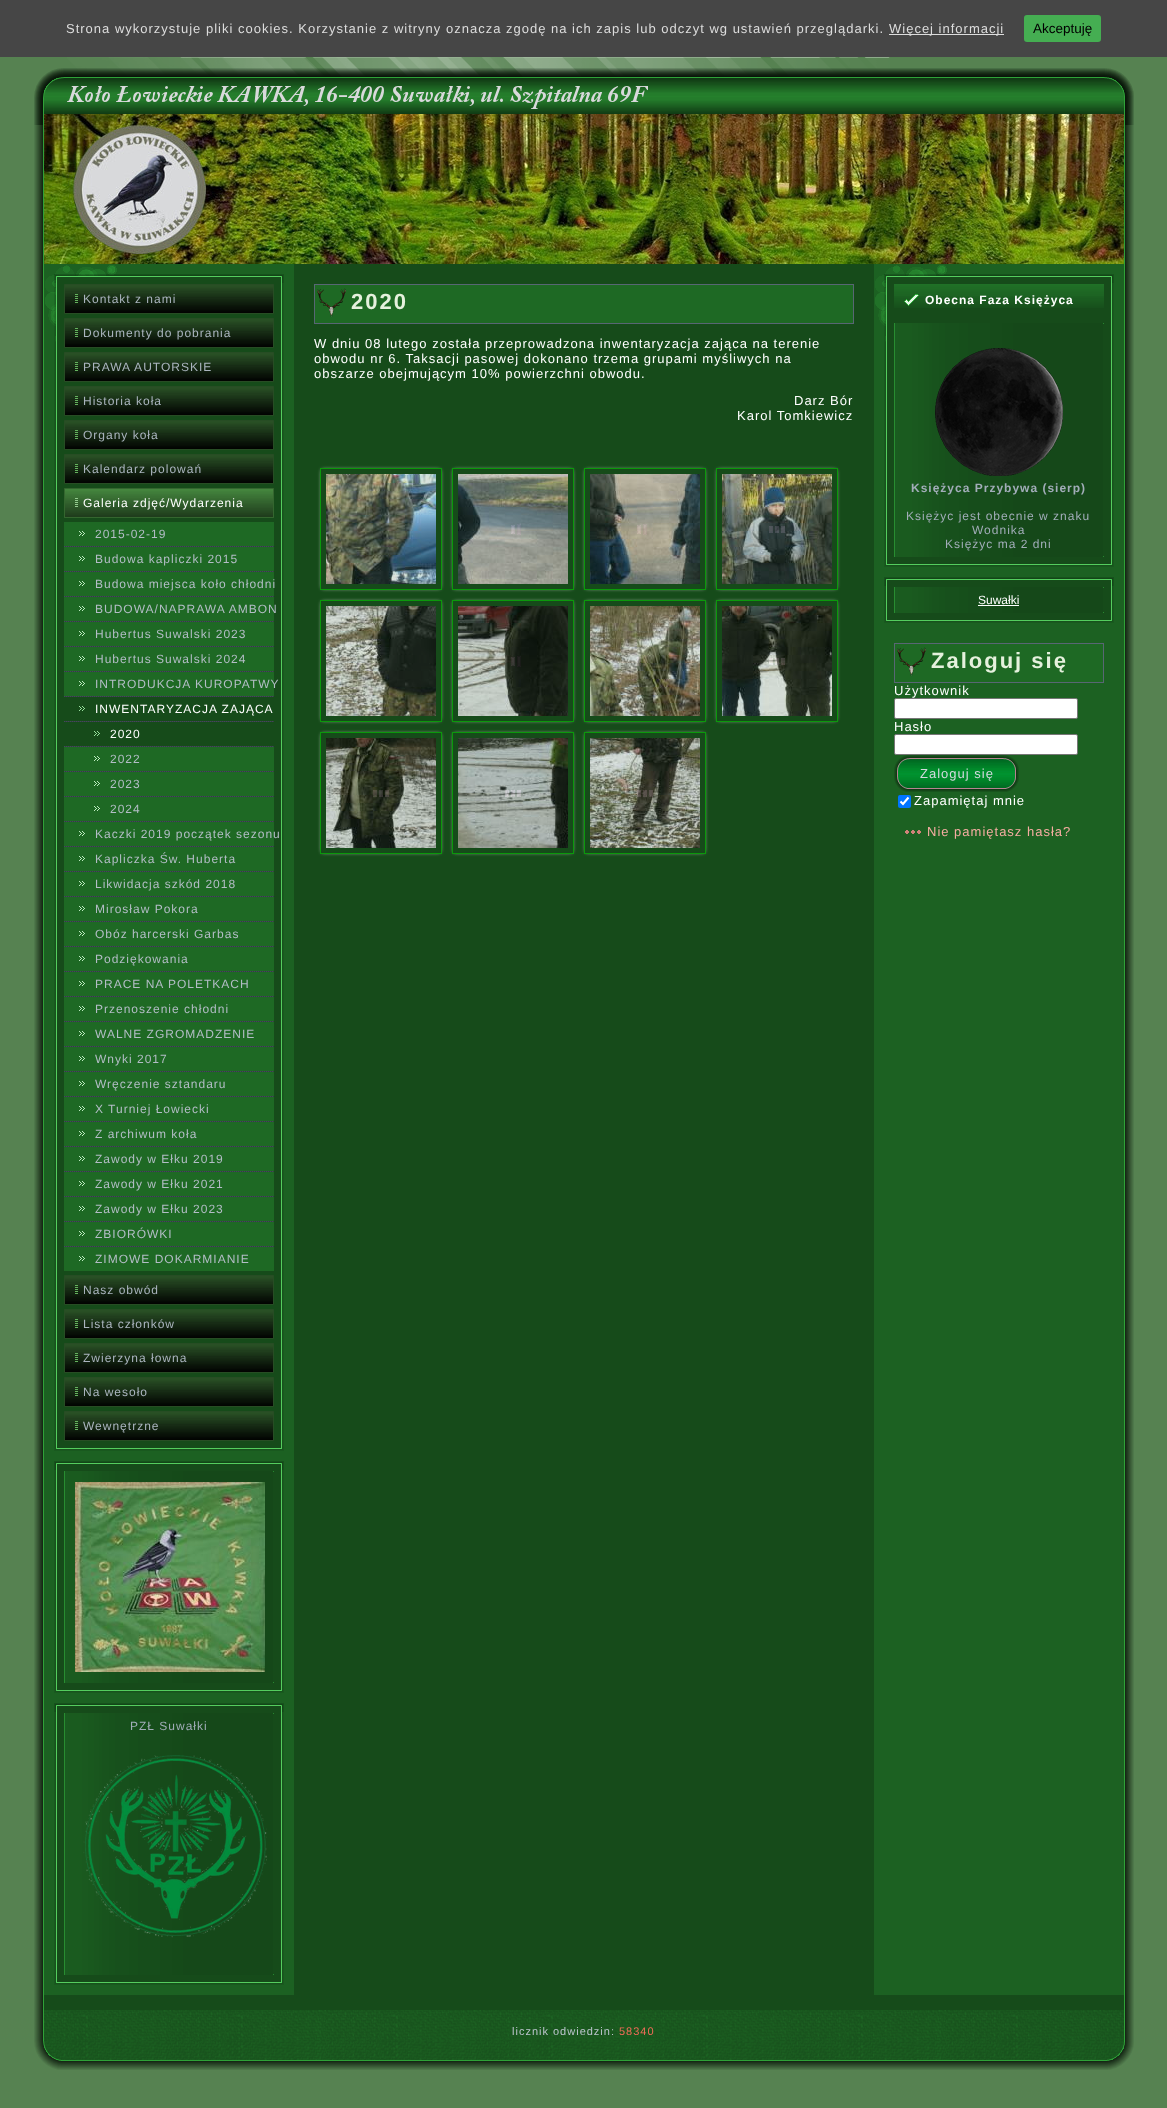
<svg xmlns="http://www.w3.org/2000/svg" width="1167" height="2108">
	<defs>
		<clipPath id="clip1"><path d="M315 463H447V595H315ZM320 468H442V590H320Z" clip-rule="evenodd" /></clipPath>
		<clipPath id="clip2"><path d="M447 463H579V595H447ZM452 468H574V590H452Z" clip-rule="evenodd" /></clipPath>
		<clipPath id="clip3"><path d="M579 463H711V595H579ZM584 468H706V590H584Z" clip-rule="evenodd" /></clipPath>
		<clipPath id="clip4"><path d="M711 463H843V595H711ZM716 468H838V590H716Z" clip-rule="evenodd" /></clipPath>
		<clipPath id="clip5"><path d="M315 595H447V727H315ZM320 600H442V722H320Z" clip-rule="evenodd" /></clipPath>
		<clipPath id="clip6"><path d="M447 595H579V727H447ZM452 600H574V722H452Z" clip-rule="evenodd" /></clipPath>
		<clipPath id="clip7"><path d="M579 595H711V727H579ZM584 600H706V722H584Z" clip-rule="evenodd" /></clipPath>
		<clipPath id="clip8"><path d="M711 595H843V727H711ZM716 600H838V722H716Z" clip-rule="evenodd" /></clipPath>
		<clipPath id="clip9"><path d="M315 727H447V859H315ZM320 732H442V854H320Z" clip-rule="evenodd" /></clipPath>
		<clipPath id="clip10"><path d="M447 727H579V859H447ZM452 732H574V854H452Z" clip-rule="evenodd" /></clipPath>
		<clipPath id="clip11"><path d="M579 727H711V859H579ZM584 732H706V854H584Z" clip-rule="evenodd" /></clipPath>
	</defs>
	<rect width="100%" height="100%" fill="#568251" />
	<rect x="0" y="0" width="1167" height="57" fill="#464646" />
	<text x="66" y="33" font-family="Liberation Sans" font-size="13" letter-spacing="1" fill="#DDDDDD">Strona wykorzystuje pliki cookies. Korzystanie z witryny oznacza zgodę na ich zapis lub odczyt wg ustawień przeglądarki.</text>
	<rect x="889" y="34" width="115" height="1" fill="#DDDDDD" />
	<text x="889" y="33" font-family="Liberation Sans" font-size="13" letter-spacing="1" fill="#DDDDDD">Więcej informacji</text>
	<rect x="1024" y="15" width="77" height="27" rx="3" fill="#45AE52" />
	<text x="1033" y="33" font-family="Liberation Sans" font-size="13.5" fill="#000000">Akceptuję</text>
	<image x="67" y="57" width="823" height="20" href="assets/img71.png" />
	<image x="34" y="68" width="1043" height="2002" href="assets/img1.png" />
	<image x="34" y="68" width="1043" height="57" href="assets/img2.png" />
	<image x="1077" y="125" width="57" height="1888" href="assets/img9.png" />
	<image x="1077" y="68" width="57" height="2002" href="assets/img3.png" />
	<image x="1077" y="68" width="57" height="57" href="assets/img4.png" />
	<image x="44" y="78" width="1060" height="36" href="assets/img5.png" />
	<image x="1104" y="78" width="20" height="36" href="assets/img6.png" />
	<image x="34" y="125" width="1043" height="1888" href="assets/img8.png" />
	<image x="44" y="114" width="1080" height="150" href="assets/img7.png" />
	<rect x="44" y="264" width="250" height="1731" fill="#1C6122" />
	<image x="45" y="265" width="72" height="79" href="assets/img10.png" />
	<image x="54" y="274" width="221" height="1177" href="assets/img11.png" />
	<image x="54" y="274" width="221" height="9" href="assets/img12.png" />
	<image x="275" y="283" width="9" height="1159" href="assets/img16.png" />
	<image x="275" y="274" width="9" height="1177" href="assets/img13.png" />
	<image x="275" y="274" width="9" height="9" href="assets/img14.png" />
	<image x="54" y="283" width="221" height="1159" href="assets/img15.png" />
	<image x="64" y="284" width="196" height="30" href="assets/img17.png" />
	<image x="260" y="284" width="14" height="30" href="assets/img18.png" />
	<text x="83" y="303" font-family="Liberation Sans" font-size="12" letter-spacing="1" fill="#ABB5BF">Kontakt z nami</text>
	<image x="64" y="318" width="196" height="30" href="assets/img17.png" />
	<image x="260" y="318" width="14" height="30" href="assets/img18.png" />
	<text x="83" y="337" font-family="Liberation Sans" font-size="12" letter-spacing="1" fill="#ABB5BF">Dokumenty do pobrania</text>
	<image x="64" y="352" width="196" height="30" href="assets/img17.png" />
	<image x="260" y="352" width="14" height="30" href="assets/img18.png" />
	<text x="83" y="371" font-family="Liberation Sans" font-size="12" letter-spacing="1" fill="#ABB5BF">PRAWA AUTORSKIE</text>
	<image x="64" y="386" width="196" height="30" href="assets/img17.png" />
	<image x="260" y="386" width="14" height="30" href="assets/img18.png" />
	<text x="83" y="405" font-family="Liberation Sans" font-size="12" letter-spacing="1" fill="#ABB5BF">Historia koła</text>
	<image x="64" y="420" width="196" height="30" href="assets/img17.png" />
	<image x="260" y="420" width="14" height="30" href="assets/img18.png" />
	<text x="83" y="439" font-family="Liberation Sans" font-size="12" letter-spacing="1" fill="#ABB5BF">Organy koła</text>
	<image x="64" y="454" width="196" height="30" href="assets/img17.png" />
	<image x="260" y="454" width="14" height="30" href="assets/img18.png" />
	<text x="83" y="473" font-family="Liberation Sans" font-size="12" letter-spacing="1" fill="#ABB5BF">Kalendarz polowań</text>
	<image x="64" y="488" width="196" height="30" href="assets/img19.png" />
	<image x="260" y="488" width="14" height="30" href="assets/img20.png" />
	<text x="83" y="507" font-family="Liberation Sans" font-size="12" letter-spacing="1" fill="#FFFFFF">Galeria zdjęć/Wydarzenia</text>
	<rect x="64" y="522" width="210" height="24" fill="#1E6924" />
	<image x="79" y="531" width="6" height="5" href="assets/img21.png" />
	<text x="95" y="538" font-family="Liberation Sans" font-size="12" letter-spacing="1" fill="#B3BDC6">2015-02-19</text>
	<rect x="64" y="546" width="210" height="1" fill="#353D46" />
	<path d="M64 546.5H274" fill="none" stroke="#424D57" stroke-dasharray="1 1" />
	<rect x="64" y="547" width="210" height="24" fill="#1E6924" />
	<image x="79" y="556" width="6" height="5" href="assets/img21.png" />
	<text x="95" y="563" font-family="Liberation Sans" font-size="12" letter-spacing="1" fill="#B3BDC6">Budowa kapliczki 2015</text>
	<rect x="64" y="571" width="210" height="1" fill="#353D46" />
	<path d="M64 571.5H274" fill="none" stroke="#424D57" stroke-dasharray="1 1" />
	<rect x="64" y="572" width="210" height="24" fill="#1E6924" />
	<image x="79" y="581" width="6" height="5" href="assets/img21.png" />
	<text x="95" y="588" font-family="Liberation Sans" font-size="12" letter-spacing="1" fill="#B3BDC6">Budowa miejsca koło chłodni</text>
	<rect x="64" y="596" width="210" height="1" fill="#353D46" />
	<path d="M64 596.5H274" fill="none" stroke="#424D57" stroke-dasharray="1 1" />
	<rect x="64" y="597" width="210" height="24" fill="#1E6924" />
	<image x="79" y="606" width="6" height="5" href="assets/img21.png" />
	<text x="95" y="613" font-family="Liberation Sans" font-size="12" letter-spacing="1" fill="#B3BDC6">BUDOWA/NAPRAWA AMBON</text>
	<rect x="64" y="621" width="210" height="1" fill="#353D46" />
	<path d="M64 621.5H274" fill="none" stroke="#424D57" stroke-dasharray="1 1" />
	<rect x="64" y="622" width="210" height="24" fill="#1E6924" />
	<image x="79" y="631" width="6" height="5" href="assets/img21.png" />
	<text x="95" y="638" font-family="Liberation Sans" font-size="12" letter-spacing="1" fill="#B3BDC6">Hubertus Suwalski 2023</text>
	<rect x="64" y="646" width="210" height="1" fill="#353D46" />
	<path d="M64 646.5H274" fill="none" stroke="#424D57" stroke-dasharray="1 1" />
	<rect x="64" y="647" width="210" height="24" fill="#1E6924" />
	<image x="79" y="656" width="6" height="5" href="assets/img21.png" />
	<text x="95" y="663" font-family="Liberation Sans" font-size="12" letter-spacing="1" fill="#B3BDC6">Hubertus Suwalski 2024</text>
	<rect x="64" y="671" width="210" height="1" fill="#353D46" />
	<path d="M64 671.5H274" fill="none" stroke="#424D57" stroke-dasharray="1 1" />
	<rect x="64" y="672" width="210" height="24" fill="#1E6924" />
	<image x="79" y="681" width="6" height="5" href="assets/img21.png" />
	<text x="95" y="688" font-family="Liberation Sans" font-size="12" letter-spacing="1" fill="#B3BDC6">INTRODUKCJA KUROPATWY</text>
	<rect x="64" y="696" width="210" height="1" fill="#353D46" />
	<path d="M64 696.5H274" fill="none" stroke="#424D57" stroke-dasharray="1 1" />
	<image x="79" y="706" width="6" height="5" href="assets/img22.png" />
	<text x="95" y="713" font-family="Liberation Sans" font-size="12" letter-spacing="1" fill="#FFFFFF">INWENTARYZACJA ZAJĄCA</text>
	<rect x="64" y="721" width="210" height="1" fill="#353D46" />
	<path d="M64 721.5H274" fill="none" stroke="#424D57" stroke-dasharray="1 1" />
	<image x="94" y="731" width="6" height="5" href="assets/img22.png" />
	<text x="110" y="738" font-family="Liberation Sans" font-size="12" letter-spacing="1" fill="#FFFFFF">2020</text>
	<rect x="64" y="746" width="210" height="1" fill="#353D46" />
	<path d="M64 746.5H274" fill="none" stroke="#424D57" stroke-dasharray="1 1" />
	<rect x="64" y="747" width="210" height="24" fill="#1E6924" />
	<image x="94" y="756" width="6" height="5" href="assets/img21.png" />
	<text x="110" y="763" font-family="Liberation Sans" font-size="12" letter-spacing="1" fill="#B3BDC6">2022</text>
	<rect x="64" y="771" width="210" height="1" fill="#353D46" />
	<path d="M64 771.5H274" fill="none" stroke="#424D57" stroke-dasharray="1 1" />
	<rect x="64" y="772" width="210" height="24" fill="#1E6924" />
	<image x="94" y="781" width="6" height="5" href="assets/img21.png" />
	<text x="110" y="788" font-family="Liberation Sans" font-size="12" letter-spacing="1" fill="#B3BDC6">2023</text>
	<rect x="64" y="796" width="210" height="1" fill="#353D46" />
	<path d="M64 796.5H274" fill="none" stroke="#424D57" stroke-dasharray="1 1" />
	<rect x="64" y="797" width="210" height="24" fill="#1E6924" />
	<image x="94" y="806" width="6" height="5" href="assets/img21.png" />
	<text x="110" y="813" font-family="Liberation Sans" font-size="12" letter-spacing="1" fill="#B3BDC6">2024</text>
	<rect x="64" y="821" width="210" height="1" fill="#353D46" />
	<path d="M64 821.5H274" fill="none" stroke="#424D57" stroke-dasharray="1 1" />
	<rect x="64" y="822" width="210" height="24" fill="#1E6924" />
	<image x="79" y="831" width="6" height="5" href="assets/img21.png" />
	<text x="95" y="838" font-family="Liberation Sans" font-size="12" letter-spacing="1" fill="#B3BDC6">Kaczki 2019 początek sezonu</text>
	<rect x="64" y="846" width="210" height="1" fill="#353D46" />
	<path d="M64 846.5H274" fill="none" stroke="#424D57" stroke-dasharray="1 1" />
	<rect x="64" y="847" width="210" height="24" fill="#1E6924" />
	<image x="79" y="856" width="6" height="5" href="assets/img21.png" />
	<text x="95" y="863" font-family="Liberation Sans" font-size="12" letter-spacing="1" fill="#B3BDC6">Kapliczka Św. Huberta</text>
	<rect x="64" y="871" width="210" height="1" fill="#353D46" />
	<path d="M64 871.5H274" fill="none" stroke="#424D57" stroke-dasharray="1 1" />
	<rect x="64" y="872" width="210" height="24" fill="#1E6924" />
	<image x="79" y="881" width="6" height="5" href="assets/img21.png" />
	<text x="95" y="888" font-family="Liberation Sans" font-size="12" letter-spacing="1" fill="#B3BDC6">Likwidacja szkód 2018</text>
	<rect x="64" y="896" width="210" height="1" fill="#353D46" />
	<path d="M64 896.5H274" fill="none" stroke="#424D57" stroke-dasharray="1 1" />
	<rect x="64" y="897" width="210" height="24" fill="#1E6924" />
	<image x="79" y="906" width="6" height="5" href="assets/img21.png" />
	<text x="95" y="913" font-family="Liberation Sans" font-size="12" letter-spacing="1" fill="#B3BDC6">Mirosław Pokora</text>
	<rect x="64" y="921" width="210" height="1" fill="#353D46" />
	<path d="M64 921.5H274" fill="none" stroke="#424D57" stroke-dasharray="1 1" />
	<rect x="64" y="922" width="210" height="24" fill="#1E6924" />
	<image x="79" y="931" width="6" height="5" href="assets/img21.png" />
	<text x="95" y="938" font-family="Liberation Sans" font-size="12" letter-spacing="1" fill="#B3BDC6">Obóz harcerski Garbas</text>
	<rect x="64" y="946" width="210" height="1" fill="#353D46" />
	<path d="M64 946.5H274" fill="none" stroke="#424D57" stroke-dasharray="1 1" />
	<rect x="64" y="947" width="210" height="24" fill="#1E6924" />
	<image x="79" y="956" width="6" height="5" href="assets/img21.png" />
	<text x="95" y="963" font-family="Liberation Sans" font-size="12" letter-spacing="1" fill="#B3BDC6">Podziękowania</text>
	<rect x="64" y="971" width="210" height="1" fill="#353D46" />
	<path d="M64 971.5H274" fill="none" stroke="#424D57" stroke-dasharray="1 1" />
	<rect x="64" y="972" width="210" height="24" fill="#1E6924" />
	<image x="79" y="981" width="6" height="5" href="assets/img21.png" />
	<text x="95" y="988" font-family="Liberation Sans" font-size="12" letter-spacing="1" fill="#B3BDC6">PRACE NA POLETKACH</text>
	<rect x="64" y="996" width="210" height="1" fill="#353D46" />
	<path d="M64 996.5H274" fill="none" stroke="#424D57" stroke-dasharray="1 1" />
	<rect x="64" y="997" width="210" height="24" fill="#1E6924" />
	<image x="79" y="1006" width="6" height="5" href="assets/img21.png" />
	<text x="95" y="1013" font-family="Liberation Sans" font-size="12" letter-spacing="1" fill="#B3BDC6">Przenoszenie chłodni</text>
	<rect x="64" y="1021" width="210" height="1" fill="#353D46" />
	<path d="M64 1021.5H274" fill="none" stroke="#424D57" stroke-dasharray="1 1" />
	<rect x="64" y="1022" width="210" height="24" fill="#1E6924" />
	<image x="79" y="1031" width="6" height="5" href="assets/img21.png" />
	<text x="95" y="1038" font-family="Liberation Sans" font-size="12" letter-spacing="1" fill="#B3BDC6">WALNE ZGROMADZENIE</text>
	<rect x="64" y="1046" width="210" height="1" fill="#353D46" />
	<path d="M64 1046.5H274" fill="none" stroke="#424D57" stroke-dasharray="1 1" />
	<rect x="64" y="1047" width="210" height="24" fill="#1E6924" />
	<image x="79" y="1056" width="6" height="5" href="assets/img21.png" />
	<text x="95" y="1063" font-family="Liberation Sans" font-size="12" letter-spacing="1" fill="#B3BDC6">Wnyki 2017</text>
	<rect x="64" y="1071" width="210" height="1" fill="#353D46" />
	<path d="M64 1071.5H274" fill="none" stroke="#424D57" stroke-dasharray="1 1" />
	<rect x="64" y="1072" width="210" height="24" fill="#1E6924" />
	<image x="79" y="1081" width="6" height="5" href="assets/img21.png" />
	<text x="95" y="1088" font-family="Liberation Sans" font-size="12" letter-spacing="1" fill="#B3BDC6">Wręczenie sztandaru</text>
	<rect x="64" y="1096" width="210" height="1" fill="#353D46" />
	<path d="M64 1096.5H274" fill="none" stroke="#424D57" stroke-dasharray="1 1" />
	<rect x="64" y="1097" width="210" height="24" fill="#1E6924" />
	<image x="79" y="1106" width="6" height="5" href="assets/img21.png" />
	<text x="95" y="1113" font-family="Liberation Sans" font-size="12" letter-spacing="1" fill="#B3BDC6">X Turniej Łowiecki</text>
	<rect x="64" y="1121" width="210" height="1" fill="#353D46" />
	<path d="M64 1121.5H274" fill="none" stroke="#424D57" stroke-dasharray="1 1" />
	<rect x="64" y="1122" width="210" height="24" fill="#1E6924" />
	<image x="79" y="1131" width="6" height="5" href="assets/img21.png" />
	<text x="95" y="1138" font-family="Liberation Sans" font-size="12" letter-spacing="1" fill="#B3BDC6">Z archiwum koła</text>
	<rect x="64" y="1146" width="210" height="1" fill="#353D46" />
	<path d="M64 1146.5H274" fill="none" stroke="#424D57" stroke-dasharray="1 1" />
	<rect x="64" y="1147" width="210" height="24" fill="#1E6924" />
	<image x="79" y="1156" width="6" height="5" href="assets/img21.png" />
	<text x="95" y="1163" font-family="Liberation Sans" font-size="12" letter-spacing="1" fill="#B3BDC6">Zawody w Ełku 2019</text>
	<rect x="64" y="1171" width="210" height="1" fill="#353D46" />
	<path d="M64 1171.5H274" fill="none" stroke="#424D57" stroke-dasharray="1 1" />
	<rect x="64" y="1172" width="210" height="24" fill="#1E6924" />
	<image x="79" y="1181" width="6" height="5" href="assets/img21.png" />
	<text x="95" y="1188" font-family="Liberation Sans" font-size="12" letter-spacing="1" fill="#B3BDC6">Zawody w Ełku 2021</text>
	<rect x="64" y="1196" width="210" height="1" fill="#353D46" />
	<path d="M64 1196.5H274" fill="none" stroke="#424D57" stroke-dasharray="1 1" />
	<rect x="64" y="1197" width="210" height="24" fill="#1E6924" />
	<image x="79" y="1206" width="6" height="5" href="assets/img21.png" />
	<text x="95" y="1213" font-family="Liberation Sans" font-size="12" letter-spacing="1" fill="#B3BDC6">Zawody w Ełku 2023</text>
	<rect x="64" y="1221" width="210" height="1" fill="#353D46" />
	<path d="M64 1221.5H274" fill="none" stroke="#424D57" stroke-dasharray="1 1" />
	<rect x="64" y="1222" width="210" height="24" fill="#1E6924" />
	<image x="79" y="1231" width="6" height="5" href="assets/img21.png" />
	<text x="95" y="1238" font-family="Liberation Sans" font-size="12" letter-spacing="1" fill="#B3BDC6">ZBIORÓWKI</text>
	<rect x="64" y="1246" width="210" height="1" fill="#353D46" />
	<path d="M64 1246.5H274" fill="none" stroke="#424D57" stroke-dasharray="1 1" />
	<rect x="64" y="1247" width="210" height="24" fill="#1E6924" />
	<image x="79" y="1256" width="6" height="5" href="assets/img21.png" />
	<text x="95" y="1263" font-family="Liberation Sans" font-size="12" letter-spacing="1" fill="#B3BDC6">ZIMOWE DOKARMIANIE</text>
	<image x="64" y="1275" width="196" height="30" href="assets/img17.png" />
	<image x="260" y="1275" width="14" height="30" href="assets/img18.png" />
	<text x="83" y="1294" font-family="Liberation Sans" font-size="12" letter-spacing="1" fill="#ABB5BF">Nasz obwód</text>
	<image x="64" y="1309" width="196" height="30" href="assets/img17.png" />
	<image x="260" y="1309" width="14" height="30" href="assets/img18.png" />
	<text x="83" y="1328" font-family="Liberation Sans" font-size="12" letter-spacing="1" fill="#ABB5BF">Lista członków</text>
	<image x="64" y="1343" width="196" height="30" href="assets/img17.png" />
	<image x="260" y="1343" width="14" height="30" href="assets/img18.png" />
	<text x="83" y="1362" font-family="Liberation Sans" font-size="12" letter-spacing="1" fill="#ABB5BF">Zwierzyna łowna</text>
	<image x="64" y="1377" width="196" height="30" href="assets/img17.png" />
	<image x="260" y="1377" width="14" height="30" href="assets/img18.png" />
	<text x="83" y="1396" font-family="Liberation Sans" font-size="12" letter-spacing="1" fill="#ABB5BF">Na wesoło</text>
	<image x="64" y="1411" width="196" height="30" href="assets/img17.png" />
	<image x="260" y="1411" width="14" height="30" href="assets/img18.png" />
	<text x="83" y="1430" font-family="Liberation Sans" font-size="12" letter-spacing="1" fill="#ABB5BF">Wewnętrzne</text>
	<image x="54" y="1461" width="221" height="232" href="assets/img23.png" />
	<image x="54" y="1461" width="221" height="9" href="assets/img24.png" />
	<image x="275" y="1470" width="9" height="214" href="assets/img27.png" />
	<image x="275" y="1461" width="9" height="232" href="assets/img25.png" />
	<image x="275" y="1461" width="9" height="9" href="assets/img14.png" />
	<image x="54" y="1470" width="221" height="214" href="assets/img26.png" />
	<image x="64" y="1471" width="209" height="212" href="assets/img28.png" />
	<image x="75" y="1482" width="190" height="190" href="assets/img29.png" />
	<image x="273" y="1682" width="1" height="1" href="assets/img30.png" />
	<rect x="273" y="1471" width="1" height="1" fill="#26872F" />
	<image x="54" y="1703" width="221" height="282" href="assets/img31.png" />
	<image x="54" y="1703" width="221" height="9" href="assets/img24.png" />
	<image x="275" y="1712" width="9" height="264" href="assets/img34.png" />
	<image x="275" y="1703" width="9" height="282" href="assets/img32.png" />
	<image x="275" y="1703" width="9" height="9" href="assets/img14.png" />
	<image x="54" y="1712" width="221" height="264" href="assets/img33.png" />
	<image x="64" y="1713" width="209" height="262" href="assets/img35.png" />
	<text x="130" y="1730" font-family="Liberation Sans" font-size="12" letter-spacing="1" fill="#A2ADB9">PZŁ Suwałki</text>
	<image x="83" y="1755" width="184" height="183" href="assets/img36.png" />
	<image x="273" y="1974" width="1" height="1" href="assets/img30.png" />
	<rect x="273" y="1713" width="1" height="1" fill="#26872F" />
	<rect x="314.5" y="284.5" width="539" height="39" fill="#1E6924" stroke="#586674" />
	<image x="317" y="288" width="29" height="29" href="assets/img37.png" />
	<text x="351" y="309" font-family="Liberation Sans" font-size="22" font-weight="700" letter-spacing="2" fill="#E5F1DD">2020</text>
	<g font-family="Liberation Sans" font-size="13" letter-spacing="1" fill="#FFFFFF">
		<text x="314" y="348">W dniu 08 lutego została przeprowadzona inwentaryzacja zająca na terenie</text>
		<text x="314" y="363">obwodu nr 6. Taksacji pasowej dokonano trzema grupami myśliwych na</text>
		<text x="314" y="378">obszarze obejmującym 10% powierzchni obwodu.</text>
		<text x="794" y="405">Darz Bór</text>
		<text x="737" y="420">Karol Tomkiewicz</text>
	</g>
	<g clip-path="url(#clip1)">
		<rect x="322" y="470" width="118" height="118" fill="#FFFFFF" filter="blur(2px)" />
	</g>
	<rect x="320.5" y="468.5" width="121" height="121" fill="none" stroke="#0B990B" />
	<image x="326" y="474" width="110" height="110" href="assets/img38.png" />
	<g clip-path="url(#clip2)">
		<rect x="454" y="470" width="118" height="118" fill="#FFFFFF" filter="blur(2px)" />
	</g>
	<image x="511" y="524" width="10" height="11" href="assets/img39.png" />
	<rect x="452.5" y="468.5" width="121" height="121" fill="none" stroke="#0B990B" />
	<image x="458" y="474" width="110" height="110" href="assets/img40.png" />
	<g clip-path="url(#clip3)">
		<rect x="586" y="470" width="118" height="118" fill="#FFFFFF" filter="blur(2px)" />
	</g>
	<image x="637" y="524" width="10" height="11" href="assets/img41.png" />
	<rect x="584.5" y="468.5" width="121" height="121" fill="none" stroke="#0B990B" />
	<image x="590" y="474" width="110" height="110" href="assets/img42.png" />
	<g clip-path="url(#clip4)">
		<rect x="718" y="470" width="118" height="118" fill="#FFFFFF" filter="blur(2px)" />
	</g>
	<image x="769" y="526" width="16" height="7" href="assets/img43.png" />
	<rect x="716.5" y="468.5" width="121" height="121" fill="none" stroke="#0B990B" />
	<image x="722" y="474" width="110" height="110" href="assets/img44.png" />
	<g clip-path="url(#clip5)">
		<rect x="322" y="602" width="118" height="118" fill="#FFFFFF" filter="blur(2px)" />
	</g>
	<rect x="320.5" y="600.5" width="121" height="121" fill="none" stroke="#0B990B" />
	<image x="326" y="606" width="110" height="110" href="assets/img45.png" />
	<g clip-path="url(#clip6)">
		<rect x="454" y="602" width="118" height="118" fill="#FFFFFF" filter="blur(2px)" />
	</g>
	<image x="511" y="656" width="10" height="11" href="assets/img39.png" />
	<rect x="452.5" y="600.5" width="121" height="121" fill="none" stroke="#0B990B" />
	<image x="458" y="606" width="110" height="110" href="assets/img46.png" />
	<g clip-path="url(#clip7)">
		<rect x="586" y="602" width="118" height="118" fill="#FFFFFF" filter="blur(2px)" />
	</g>
	<image x="637" y="656" width="10" height="11" href="assets/img41.png" />
	<rect x="584.5" y="600.5" width="121" height="121" fill="none" stroke="#0B990B" />
	<image x="590" y="606" width="110" height="110" href="assets/img47.png" />
	<g clip-path="url(#clip8)">
		<rect x="718" y="602" width="118" height="118" fill="#FFFFFF" filter="blur(2px)" />
	</g>
	<image x="769" y="658" width="16" height="7" href="assets/img43.png" />
	<rect x="716.5" y="600.5" width="121" height="121" fill="none" stroke="#0B990B" />
	<image x="722" y="606" width="110" height="110" href="assets/img48.png" />
	<g clip-path="url(#clip9)">
		<rect x="322" y="734" width="118" height="118" fill="#FFFFFF" filter="blur(2px)" />
	</g>
	<image x="373" y="790" width="16" height="7" href="assets/img43.png" />
	<rect x="320.5" y="732.5" width="121" height="121" fill="none" stroke="#0B990B" />
	<image x="326" y="738" width="110" height="110" href="assets/img49.png" />
	<g clip-path="url(#clip10)">
		<rect x="454" y="734" width="118" height="118" fill="#FFFFFF" filter="blur(2px)" />
	</g>
	<image x="505" y="790" width="16" height="7" href="assets/img43.png" />
	<rect x="452.5" y="732.5" width="121" height="121" fill="none" stroke="#0B990B" />
	<image x="458" y="738" width="110" height="110" href="assets/img50.png" />
	<g clip-path="url(#clip11)">
		<rect x="586" y="734" width="118" height="118" fill="#FFFFFF" filter="blur(2px)" />
	</g>
	<image x="637" y="790" width="16" height="7" href="assets/img43.png" />
	<rect x="584.5" y="732.5" width="121" height="121" fill="none" stroke="#0B990B" />
	<image x="590" y="738" width="110" height="110" href="assets/img51.png" />
	<rect x="874" y="264" width="250" height="1731" fill="#1C6122" />
	<image x="875" y="265" width="72" height="79" href="assets/img10.png" />
	<image x="884" y="274" width="221" height="293" href="assets/img52.png" />
	<image x="884" y="274" width="221" height="9" href="assets/img12.png" />
	<image x="1105" y="283" width="9" height="275" href="assets/img55.png" />
	<image x="1105" y="274" width="9" height="293" href="assets/img53.png" />
	<image x="1105" y="274" width="9" height="9" href="assets/img14.png" />
	<image x="884" y="283" width="221" height="275" href="assets/img54.png" />
	<image x="894" y="284" width="185" height="24" href="assets/img56.png" />
	<image x="1079" y="284" width="25" height="24" href="assets/img57.png" />
	<text x="925" y="304" font-family="Liberation Sans" font-size="12" font-weight="700" letter-spacing="1" fill="#FFFFFF">Obecna Faza Księżyca</text>
	<image x="894" y="323" width="209" height="234" href="assets/img58.png" />
	<image x="935" y="348" width="128" height="128" href="assets/img59.png" />
	<text x="911" y="492" font-family="Liberation Sans" font-size="12" font-weight="700" letter-spacing="1" fill="#A2ADB9">Księżyca Przybywa (sierp)</text>
	<g font-family="Liberation Sans" font-size="12" letter-spacing="1" fill="#A2ADB9">
		<text x="906" y="520">Księżyc jest obecnie w znaku</text>
		<text x="972" y="534">Wodnika</text>
		<text x="945" y="548">Księżyc ma 2 dni</text>
	</g>
	<image x="1103" y="556" width="1" height="1" href="assets/img30.png" />
	<rect x="1103" y="323" width="1" height="1" fill="#26872F" />
	<image x="884" y="577" width="221" height="46" href="assets/img60.png" />
	<image x="884" y="577" width="221" height="9" href="assets/img24.png" />
	<image x="1105" y="586" width="9" height="28" href="assets/img63.png" />
	<image x="1105" y="577" width="9" height="46" href="assets/img61.png" />
	<image x="1105" y="577" width="9" height="9" href="assets/img14.png" />
	<image x="884" y="586" width="221" height="28" href="assets/img62.png" />
	<image x="894" y="587" width="209" height="26" href="assets/img64.png" />
	<text x="978" y="604" font-family="Liberation Sans" font-size="12" fill="#FFFFFF">Suwałki</text>
	<rect x="978" y="605" width="41" height="1" fill="#FFFFFF" />
	<image x="1103" y="612" width="1" height="1" href="assets/img30.png" />
	<rect x="1103" y="587" width="1" height="1" fill="#26872F" />
	<rect x="894.5" y="643.5" width="209" height="39" fill="#1E6924" stroke="#586674" />
	<image x="897" y="647" width="29" height="29" href="assets/img37.png" />
	<text x="931" y="668" font-family="Liberation Sans" font-size="22" font-weight="700" letter-spacing="2" fill="#E5F1DD">Zaloguj się</text>
	<text x="894" y="695" font-family="Liberation Sans" font-size="13" letter-spacing="1" fill="#FFFFFF">Użytkownik</text>
	<rect x="894.5" y="698.5" width="183" height="20" rx="1.5" fill="#FFFFFF" stroke="#767676" />
	<text x="894" y="731" font-family="Liberation Sans" font-size="13" letter-spacing="1" fill="#FFFFFF">Hasło</text>
	<rect x="894.5" y="734.5" width="183" height="20" rx="1.5" fill="#FFFFFF" stroke="#767676" />
	<image x="894" y="755" width="106" height="37" href="assets/img65.png" />
	<image x="1000" y="755" width="19" height="37" href="assets/img66.png" />
	<text x="920" y="778" font-family="Liberation Sans" font-size="13" letter-spacing="1" fill="#D3D9DE">Zaloguj się</text>
	<rect x="898" y="795" width="13" height="13" rx="2" fill="#0075FF" />
	<path d="M900.5 801.5L903 804L908.5 797.5" fill="none" stroke="#FFFFFF" stroke-width="2.1" />
	<text x="914" y="805" font-family="Liberation Sans" font-size="13" letter-spacing="1" fill="#FFFFFF">Zapamiętaj mnie</text>
	<image x="905" y="830" width="16" height="4" href="assets/img67.png" />
	<text x="927" y="836" font-family="Liberation Sans" font-size="13" letter-spacing="1" fill="#F6ADA2">Nie pamiętasz hasła?</text>
	<image x="44" y="2010" width="1080" height="30" href="assets/img68.png" />
	<text x="512" y="2035" font-family="Liberation Sans" font-size="11" letter-spacing="1" fill="#BCC4CD">licznik odwiedzin:</text>
	<text x="619" y="2035" font-family="Liberation Sans" font-size="11" letter-spacing="1" fill="#EF6B57">58340</text>
	<image x="44" y="2040" width="1060" height="20" href="assets/img69.png" />
	<image x="1104" y="2040" width="20" height="20" href="assets/img70.png" />
</svg>
